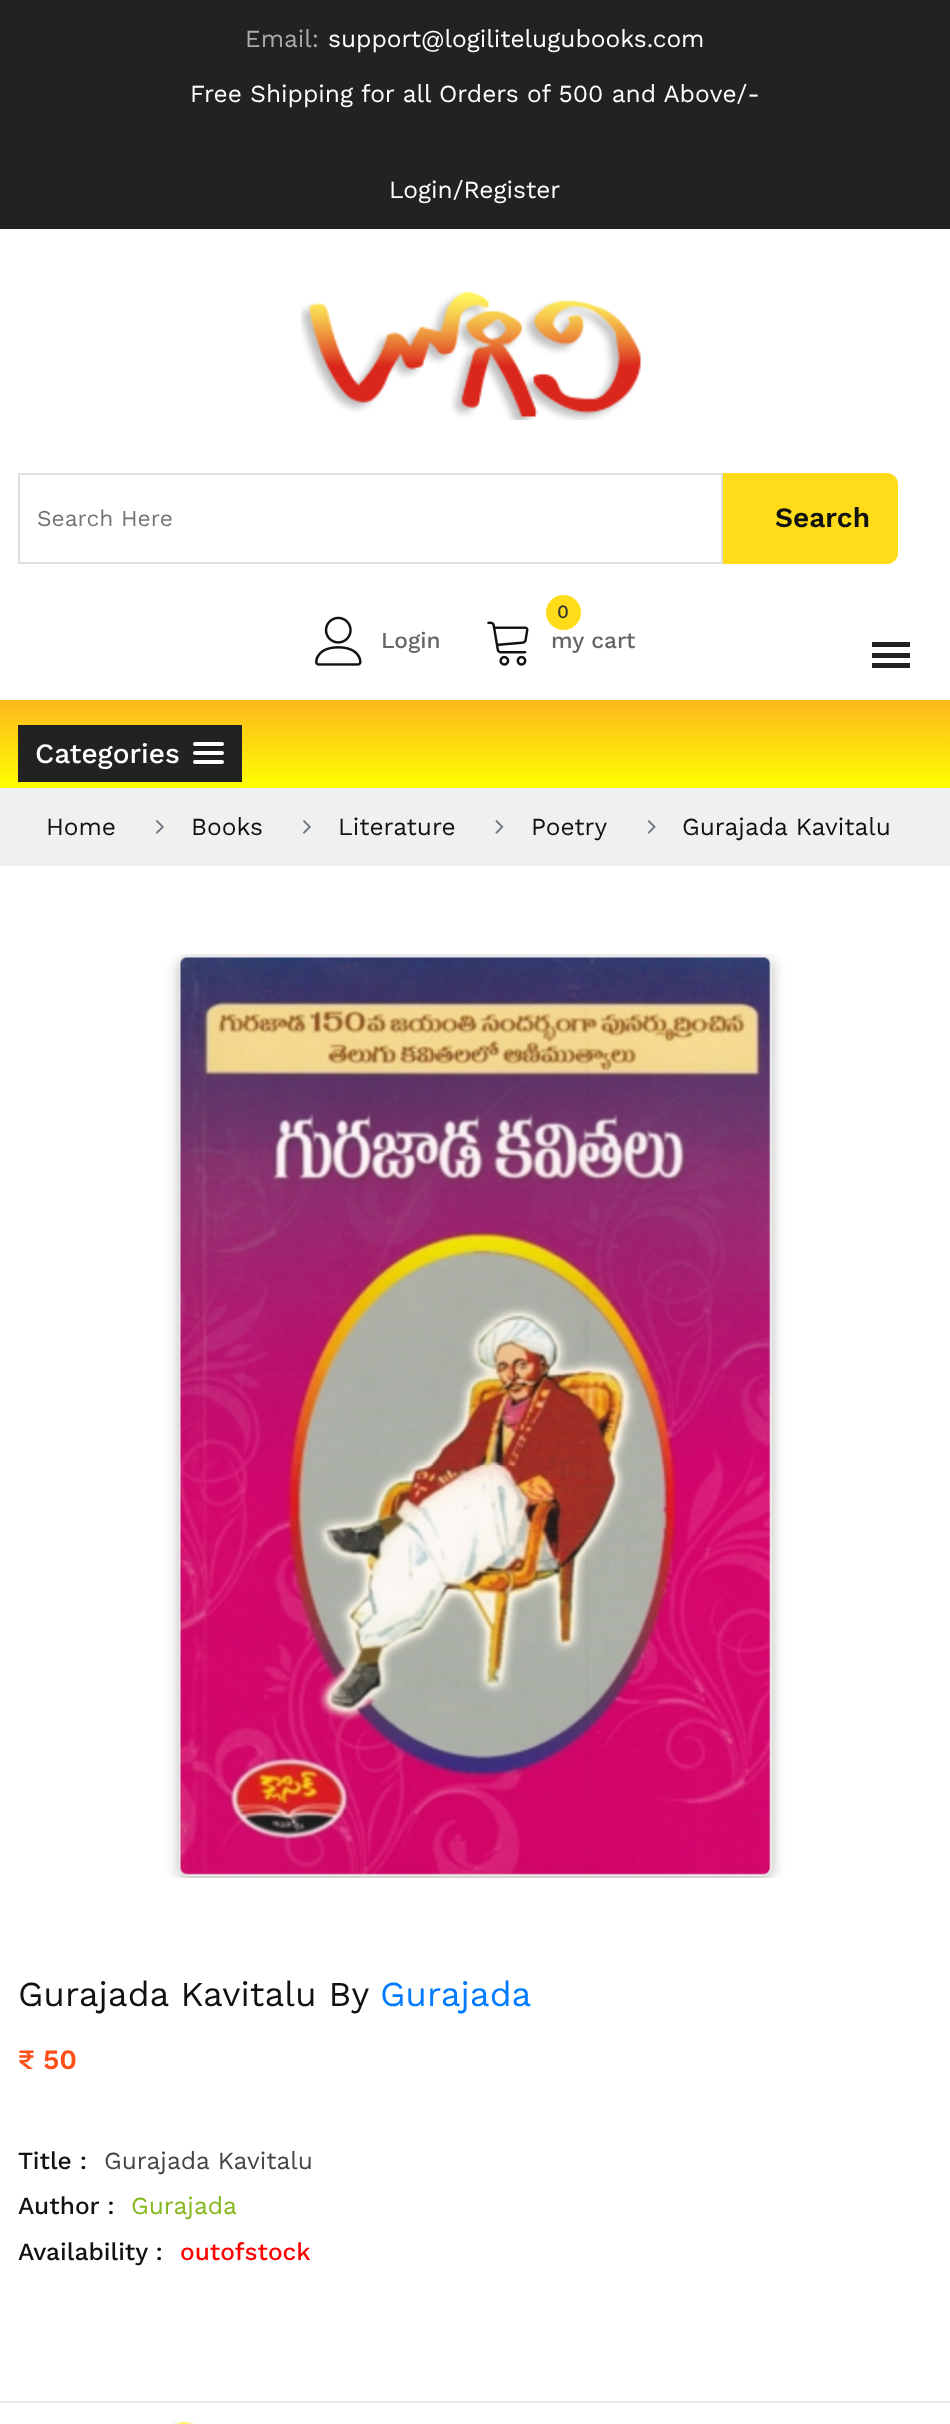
<svg xmlns="http://www.w3.org/2000/svg" width="950" height="2424">
	<defs>
		<linearGradient id="g1" gradientUnits="userSpaceOnUse" x1="475" y1="700" x2="475" y2="788"><stop offset="0" stop-color="#FDB81D" /><stop offset="1" stop-color="#FFFF00" /></linearGradient>
		<clipPath id="clip1"><rect x="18" y="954" width="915" height="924" /></clipPath>
	</defs>
	<rect width="100%" height="100%" fill="#FFFFFF" />
	<rect x="0" y="0" width="950" height="229" fill="#222222" />
	<text x="245" y="47" font-family="Work Sans" font-size="24.5" fill="#AAAAAA">Email:</text>
	<g font-family="Work Sans" font-size="24.5" fill="#FFFFFF">
		<text x="328" y="47">support@logilitelugubooks.com</text>
		<text x="190" y="102">Free Shipping for all Orders of 500 and Above/-</text>
		<text x="389" y="198">Login/Register</text>
	</g>
	<image x="301" y="291" width="340" height="129" href="assets/img1.png" />
	<rect x="19" y="474" width="703" height="89" fill="none" stroke="#E0E0E0" stroke-width="2" />
	<text x="37" y="526" font-family="Work Sans" font-size="22.75" fill="#757575">Search Here</text>
	<path d="M723 473H887C893 473 898 478 898 484V553C898 559 893 564 887 564H723Z" fill="#FEDC19" />
	<text x="775" y="527" font-family="Work Sans" font-size="28" font-weight="600" fill="#111111">Search</text>
	<image x="315" y="616" width="47" height="50" href="assets/img2.png" />
	<text x="381" y="648" font-family="Work Sans" font-size="22.75" font-weight="500" fill="#666666">Login</text>
	<circle cx="563.5" cy="612.5" r="17.5" fill="#FEDC19" />
	<text x="557" y="618" font-family="Work Sans" font-size="19" font-weight="500" fill="#333333">0</text>
	<image x="487" y="621" width="42" height="45" href="assets/img3.png" />
	<text x="551" y="648" font-family="Work Sans" font-size="22.75" font-weight="500" fill="#666666">my cart</text>
	<rect x="0" y="700" width="950" height="88" fill="url(#g1)" />
	<rect x="872" y="642" width="38" height="5" fill="#222222" />
	<rect x="872" y="653" width="38" height="5" fill="#222222" />
	<rect x="872" y="663" width="38" height="5" fill="#222222" />
	<rect x="18" y="725" width="224" height="57" fill="#222222" />
	<text x="35" y="763" font-family="Work Sans" font-size="28" font-weight="500" fill="#FFFFFF">Categories</text>
	<path d="M193 745C191.5 749 198.5 748 199.5 748H217.5C218.5 748 223.5 749 224 746.5L223.5 745L222.5 745.5C220 746 194 746 193 745Z" fill="#1A1A1A" />
	<rect x="193" y="742" width="31" height="4" rx="2" fill="#FFFFFF" />
	<path d="M193.5 754C191 758 199 757 199.5 757H217.5C218.5 757 223.5 758 224 755.5C224 755 224 754 223.5 753.5L222.5 754C220 754.5 194 754.5 193.5 754Z" fill="#1A1A1A" />
	<rect x="193" y="751" width="31" height="4" rx="2" fill="#FFFFFF" />
	<path d="M193 762.5C192 766 198.5 765 199.5 765H217.5C218.5 765 225.5 766 224 762L222.5 763H194Z" fill="#1A1A1A" />
	<rect x="193" y="760" width="31" height="4" rx="2" fill="#FFFFFF" />
	<rect x="0" y="788" width="950" height="78" fill="#F0F0F0" />
	<text x="46" y="835" font-family="Work Sans" font-size="24.5" fill="#111111">Home</text>
	<image x="156" y="820" width="8" height="14" href="assets/img4.png" />
	<text x="191" y="835" font-family="Work Sans" font-size="24.5" fill="#111111">Books</text>
	<image x="303" y="820" width="8" height="14" href="assets/img4.png" />
	<text x="338" y="835" font-family="Work Sans" font-size="24.5" fill="#111111">Literature</text>
	<image x="495" y="820" width="9" height="14" href="assets/img5.png" />
	<text x="531" y="835" font-family="Work Sans" font-size="24.5" fill="#111111">Poetry</text>
	<image x="647" y="820" width="9" height="14" href="assets/img6.png" />
	<text x="682" y="835" font-family="Work Sans" font-size="24.5" fill="#111111">Gurajada Kavitalu</text>
	<rect x="0" y="2401" width="950" height="2" fill="#E7E7E7" />
	<g clip-path="url(#clip1)">
		<rect x="179" y="959" width="593" height="921" rx="9" fill="#000000" fill-opacity="0.27" filter="blur(7px)" />
	</g>
	<rect x="180" y="957" width="591" height="918" rx="8" fill="none" stroke="#F0F0F0" stroke-width="2" />
	<image x="179" y="956" width="592" height="919" href="assets/img7.png" />
	<text x="18" y="2006" font-family="Work Sans" font-size="35" fill="#111111">Gurajada Kavitalu By</text>
	<text x="380" y="2006" font-family="Work Sans" font-size="35" fill="#007BFF">Gurajada</text>
	<text x="18" y="2069" font-family="Work Sans" font-size="28" font-weight="600" fill="#FE4F19">₹ 50</text>
	<text x="18" y="2169" font-family="Work Sans" font-size="24.5" font-weight="500" fill="#111111">Title :</text>
	<text x="104" y="2169" font-family="Work Sans" font-size="24.5" fill="#444444">Gurajada Kavitalu</text>
	<text x="18" y="2214" font-family="Work Sans" font-size="24.5" font-weight="500" fill="#111111">Author :</text>
	<text x="131" y="2214" font-family="Work Sans" font-size="24.5" fill="#83B71C">Gurajada</text>
	<text x="18" y="2260" font-family="Work Sans" font-size="24.5" font-weight="500" fill="#111111">Availability :</text>
	<text x="180" y="2260" font-family="Work Sans" font-size="24.5" font-weight="500" fill="#FF0000">outofstock</text>
	<image x="172" y="2421" width="25" height="3" href="assets/img8.png" />
</svg>
